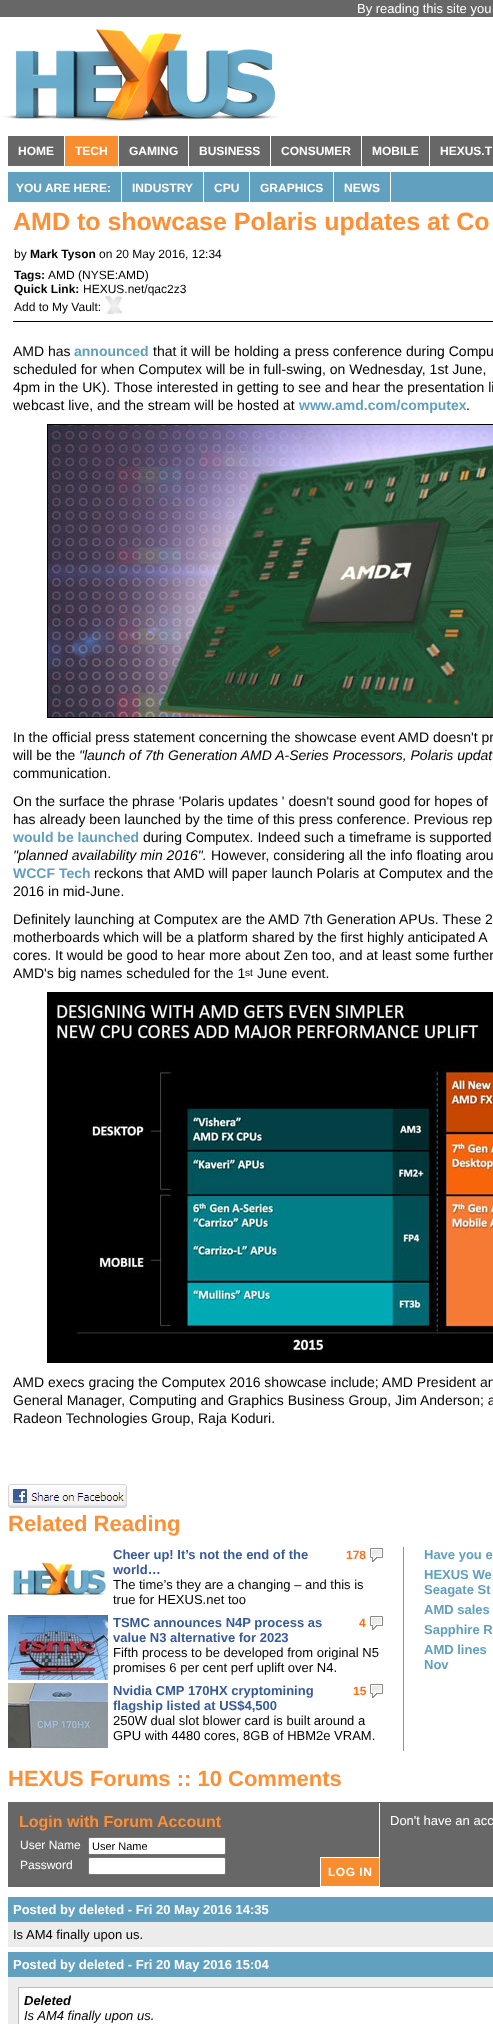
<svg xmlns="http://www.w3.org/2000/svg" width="493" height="2024">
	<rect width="100%" height="100%" fill="#FFFFFF" />
	<rect x="0" y="0" width="493" height="17" fill="#676767" />
	<text x="357" y="13" font-family="Liberation Sans" font-size="13" fill="#FFFFFF">By reading this site you</text>
	<image x="2" y="29" width="276" height="93" href="assets/img1.png" />
	<rect x="8" y="136" width="485" height="30" fill="#676767" />
	<text x="18" y="155" font-family="Liberation Sans" font-size="12" font-weight="700" fill="#FFFFFF">HOME</text>
	<rect x="64" y="136" width="1" height="30" fill="#FFFFFF" />
	<rect x="65" y="136" width="53" height="30" fill="#F88D2F" />
	<text x="75" y="155" font-family="Liberation Sans" font-size="12" font-weight="700" fill="#FFFFFF">TECH</text>
	<rect x="118" y="136" width="1" height="30" fill="#FFFFFF" />
	<text x="129" y="155" font-family="Liberation Sans" font-size="12" font-weight="700" fill="#FFFFFF">GAMING</text>
	<rect x="188" y="136" width="1" height="30" fill="#FFFFFF" />
	<text x="199" y="155" font-family="Liberation Sans" font-size="12" font-weight="700" fill="#FFFFFF">BUSINESS</text>
	<rect x="270" y="136" width="1" height="30" fill="#FFFFFF" />
	<text x="281" y="155" font-family="Liberation Sans" font-size="12" font-weight="700" fill="#FFFFFF">CONSUMER</text>
	<rect x="361" y="136" width="1" height="30" fill="#FFFFFF" />
	<text x="372" y="155" font-family="Liberation Sans" font-size="12" font-weight="700" fill="#FFFFFF">MOBILE</text>
	<rect x="429" y="136" width="1" height="30" fill="#FFFFFF" />
	<text x="440" y="155" font-family="Liberation Sans" font-size="12" font-weight="700" fill="#FFFFFF">HEXUS.T</text>
	<rect x="8" y="172" width="485" height="30" fill="#61A0BF" />
	<text x="16" y="192" font-family="Liberation Sans" font-size="12" font-weight="700" fill="#FFFFFF">YOU ARE HERE:</text>
	<rect x="121" y="172" width="1" height="30" fill="#FFFFFF" />
	<text x="132" y="192" font-family="Liberation Sans" font-size="12" font-weight="700" fill="#FFFFFF">INDUSTRY</text>
	<rect x="203" y="172" width="1" height="30" fill="#FFFFFF" />
	<text x="214" y="192" font-family="Liberation Sans" font-size="12" font-weight="700" fill="#FFFFFF">CPU</text>
	<rect x="249" y="172" width="1" height="30" fill="#FFFFFF" />
	<text x="260" y="192" font-family="Liberation Sans" font-size="12" font-weight="700" fill="#FFFFFF">GRAPHICS</text>
	<rect x="333" y="172" width="1" height="30" fill="#FFFFFF" />
	<text x="344" y="192" font-family="Liberation Sans" font-size="12" font-weight="700" fill="#FFFFFF">NEWS</text>
	<rect x="390" y="172" width="1" height="30" fill="#FFFFFF" />
	<rect x="13" y="321" width="480" height="1" fill="#000000" />
	<text x="13" y="230" font-family="Liberation Sans" font-size="25" font-weight="700" fill="#FF8F35">AMD to showcase Polaris updates at Co</text>
	<text x="14" y="258" font-family="Liberation Sans" font-size="12" fill="#000000">by</text>
	<text x="30" y="258" font-family="Liberation Sans" font-size="12" font-weight="700" fill="#000000">Mark Tyson</text>
	<text x="99" y="258" font-family="Liberation Sans" font-size="12" fill="#000000">on 20 May 2016, 12:34</text>
	<text x="14" y="279" font-family="Liberation Sans" font-size="12" font-weight="700" fill="#000000">Tags:</text>
	<text x="48" y="279" font-family="Liberation Sans" font-size="12" fill="#000000">AMD (NYSE:AMD)</text>
	<text x="14" y="293" font-family="Liberation Sans" font-size="12" font-weight="700" fill="#000000">Quick Link:</text>
	<g font-family="Liberation Sans" font-size="12" fill="#000000">
		<text x="83" y="293">HEXUS.net/qac2z3</text>
		<text x="14" y="311">Add to My Vault:</text>
	</g>
	<image x="105" y="296" width="17" height="18" href="assets/img2.png" />
	<text x="13" y="356" font-family="Liberation Sans" font-size="14" fill="#000000">AMD has</text>
	<text x="74" y="356" font-family="Liberation Sans" font-size="14" font-weight="700" fill="#61A0BF">announced</text>
	<g font-family="Liberation Sans" font-size="14" fill="#000000">
		<text x="153" y="356">that it will be holding a press conference during Compu</text>
		<text x="13" y="374">scheduled for when Computex will be in full-swing, on Wednesday, 1st June,</text>
		<text x="13" y="392">4pm in the UK). Those interested in getting to see and hear the presentation li</text>
		<text x="13" y="410">webcast live, and the stream will be hosted at</text>
	</g>
	<text x="299" y="410" font-family="Liberation Sans" font-size="14" font-weight="700" fill="#61A0BF">www.amd.com/computex</text>
	<text x="466" y="410" font-family="Liberation Sans" font-size="14" fill="#000000">.</text>
	<rect x="47.5" y="424.5" width="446" height="293" fill="none" stroke="#000000" />
	<image x="48" y="425" width="445" height="292" href="assets/img3.png" />
	<g font-family="Liberation Sans" font-size="14" fill="#000000">
		<text x="13" y="742">In the official press statement concerning the showcase event AMD doesn't pr</text>
		<text x="13" y="760">will be the</text>
	</g>
	<text x="79" y="760" font-family="Liberation Sans" font-size="14" font-style="italic" fill="#000000">"launch of 7th Generation AMD A-Series Processors, Polaris updat</text>
	<g font-family="Liberation Sans" font-size="14" fill="#000000">
		<text x="13" y="778">communication.</text>
		<text x="13" y="806">On the surface the phrase 'Polaris updates ' doesn't sound good for hopes of</text>
		<text x="13" y="824">has already been launched by the time of this press conference. Previous rep</text>
	</g>
	<text x="13" y="842" font-family="Liberation Sans" font-size="14" font-weight="700" fill="#61A0BF">would be launched</text>
	<text x="143" y="842" font-family="Liberation Sans" font-size="14" fill="#000000">during Computex. Indeed such a timeframe is supported</text>
	<text x="13" y="860" font-family="Liberation Sans" font-size="14" font-style="italic" fill="#000000">"planned availability min 2016".</text>
	<text x="211" y="860" font-family="Liberation Sans" font-size="14" fill="#000000">However, considering all the info floating arou</text>
	<text x="13" y="878" font-family="Liberation Sans" font-size="14" font-weight="700" fill="#61A0BF">WCCF Tech</text>
	<g font-family="Liberation Sans" font-size="14" fill="#000000">
		<text x="94" y="878">reckons that AMD will paper launch Polaris at Computex and the</text>
		<text x="13" y="896">2016 in mid-June.</text>
		<text x="13" y="924">Definitely launching at Computex are the AMD 7th Generation APUs. These 2</text>
		<text x="13" y="942">motherboards which will be a platform shared by the first highly anticipated A</text>
		<text x="13" y="960">cores. It would be good to hear more about Zen too, and at least some further</text>
		<text x="13" y="978">AMD's big names scheduled for the 1</text>
	</g>
	<text x="245" y="976" font-family="Liberation Sans" font-size="10" fill="#000000">st</text>
	<text x="257" y="978" font-family="Liberation Sans" font-size="14" fill="#000000">June event.</text>
	<rect x="47.5" y="992.5" width="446" height="370" fill="none" stroke="#000000" />
	<image x="48" y="993" width="445" height="369" href="assets/img4.png" />
	<g font-family="Liberation Sans" font-size="14" fill="#000000">
		<text x="13" y="1387">AMD execs gracing the Computex 2016 showcase include; AMD President an</text>
		<text x="13" y="1405">General Manager, Computing and Graphics Business Group, Jim Anderson; a</text>
		<text x="13" y="1423">Radeon Technologies Group, Raja Koduri.</text>
	</g>
	<image x="8" y="1484" width="119" height="24" href="assets/img5.png" />
	<text x="8" y="1531" font-family="Liberation Sans" font-size="22" font-weight="700" fill="#FF8F35">Related Reading</text>
	<rect x="403" y="1547" width="1" height="204" fill="#61A0BF" />
	<text x="113" y="1559" font-family="Liberation Sans" font-size="13" font-weight="700" fill="#385A9A">Cheer up! It’s not the end of the</text>
	<image x="370" y="1548" width="13" height="14" href="assets/img6.png" />
	<text x="346" y="1559" font-family="Liberation Sans" font-size="12" font-weight="700" fill="#FD6F1B">178</text>
	<image x="11" y="1562" width="97" height="35" href="assets/img7.png" />
	<text x="113" y="1574" font-family="Liberation Sans" font-size="13" font-weight="700" fill="#385A9A">world…</text>
	<g font-family="Liberation Sans" font-size="13" fill="#000000">
		<text x="113" y="1589">The time’s they are a changing – and this is</text>
		<text x="113" y="1604">true for HEXUS.net too</text>
	</g>
	<image x="8" y="1615" width="100" height="65" href="assets/img8.png" />
	<text x="113" y="1627" font-family="Liberation Sans" font-size="13" font-weight="700" fill="#385A9A">TSMC announces N4P process as</text>
	<image x="370" y="1616" width="13" height="14" href="assets/img6.png" />
	<text x="359" y="1627" font-family="Liberation Sans" font-size="12" font-weight="700" fill="#FD6F1B">4</text>
	<text x="113" y="1642" font-family="Liberation Sans" font-size="13" font-weight="700" fill="#385A9A">value N3 alternative for 2023</text>
	<g font-family="Liberation Sans" font-size="13" fill="#000000">
		<text x="113" y="1657">Fifth process to be developed from original N5</text>
		<text x="113" y="1672">promises 6 per cent perf uplift over N4.</text>
	</g>
	<image x="8" y="1683" width="100" height="65" href="assets/img9.png" />
	<text x="113" y="1695" font-family="Liberation Sans" font-size="13" font-weight="700" fill="#385A9A">Nvidia CMP 170HX cryptomining</text>
	<image x="370" y="1684" width="13" height="14" href="assets/img6.png" />
	<text x="353" y="1695" font-family="Liberation Sans" font-size="12" font-weight="700" fill="#FD6F1B">15</text>
	<text x="113" y="1710" font-family="Liberation Sans" font-size="13" font-weight="700" fill="#385A9A">flagship listed at US$4,500</text>
	<g font-family="Liberation Sans" font-size="13" fill="#000000">
		<text x="113" y="1725">250W dual slot blower card is built around a</text>
		<text x="113" y="1740">GPU with 4480 cores, 8GB of HBM2e VRAM.</text>
	</g>
	<g font-family="Liberation Sans" font-size="13" font-weight="700" fill="#61A0BF">
		<text x="424" y="1559">Have you e</text>
		<text x="424" y="1579">HEXUS We</text>
		<text x="424" y="1594">Seagate St</text>
		<text x="424" y="1614">AMD sales</text>
		<text x="424" y="1634">Sapphire R</text>
		<text x="424" y="1654">AMD lines</text>
		<text x="424" y="1669">Nov</text>
	</g>
	<text x="8" y="1786" font-family="Liberation Sans" font-size="22" font-weight="700" fill="#FF8F35">HEXUS Forums :: 10 Comments</text>
	<rect x="8" y="1802" width="485" height="85" fill="#676767" />
	<rect x="379" y="1803" width="1" height="54" fill="#FFFFFF" />
	<text x="19" y="1827" font-family="Liberation Sans" font-size="16" font-weight="700" fill="#FF8F35">Login with Forum Account</text>
	<text x="20" y="1849" font-family="Liberation Sans" font-size="12" fill="#FFFFFF">User Name</text>
	<rect x="88.5" y="1837.5" width="137" height="17" rx="1.5" fill="#FFFFFF" stroke="#767676" />
	<text x="92" y="1850" font-family="Liberation Sans" font-size="11" fill="#000000">User Name</text>
	<text x="20" y="1869" font-family="Liberation Sans" font-size="12" fill="#FFFFFF">Password</text>
	<rect x="88.5" y="1857.5" width="137" height="17" rx="1.5" fill="#FFFFFF" stroke="#767676" />
	<rect x="320.5" y="1857.5" width="59" height="29" fill="#F88D2F" stroke="#FFFFFF" />
	<text x="328" y="1876" font-family="Liberation Sans" font-size="12" font-weight="700" letter-spacing="0.5" fill="#FFFFFF">LOG IN</text>
	<text x="390" y="1825" font-family="Liberation Sans" font-size="13" fill="#FFFFFF">Don't have an acc</text>
	<rect x="8" y="1897" width="485" height="25" fill="#61A0BF" />
	<text x="13" y="1914" font-family="Liberation Sans" font-size="13" font-weight="700" fill="#FFFFFF">Posted by deleted - Fri 20 May 2016 14:35</text>
	<rect x="8" y="1922" width="485" height="25" fill="#ECECEC" />
	<text x="13" y="1939" font-family="Liberation Sans" font-size="13" fill="#000000">Is AM4 finally upon us.</text>
	<rect x="8" y="1952" width="485" height="25" fill="#61A0BF" />
	<text x="13" y="1969" font-family="Liberation Sans" font-size="13" font-weight="700" fill="#FFFFFF">Posted by deleted - Fri 20 May 2016 15:04</text>
	<rect x="8" y="1977" width="485" height="47" fill="#ECECEC" />
	<rect x="18.5" y="1987.5" width="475" height="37" fill="#FFFFFF" stroke="#BBBBBB" />
	<text x="24" y="2005" font-family="Liberation Sans" font-size="13" font-weight="700" font-style="italic" fill="#000000">Deleted</text>
	<text x="24" y="2020" font-family="Liberation Sans" font-size="13" font-style="italic" fill="#000000">Is AM4 finally upon us.</text>
</svg>
